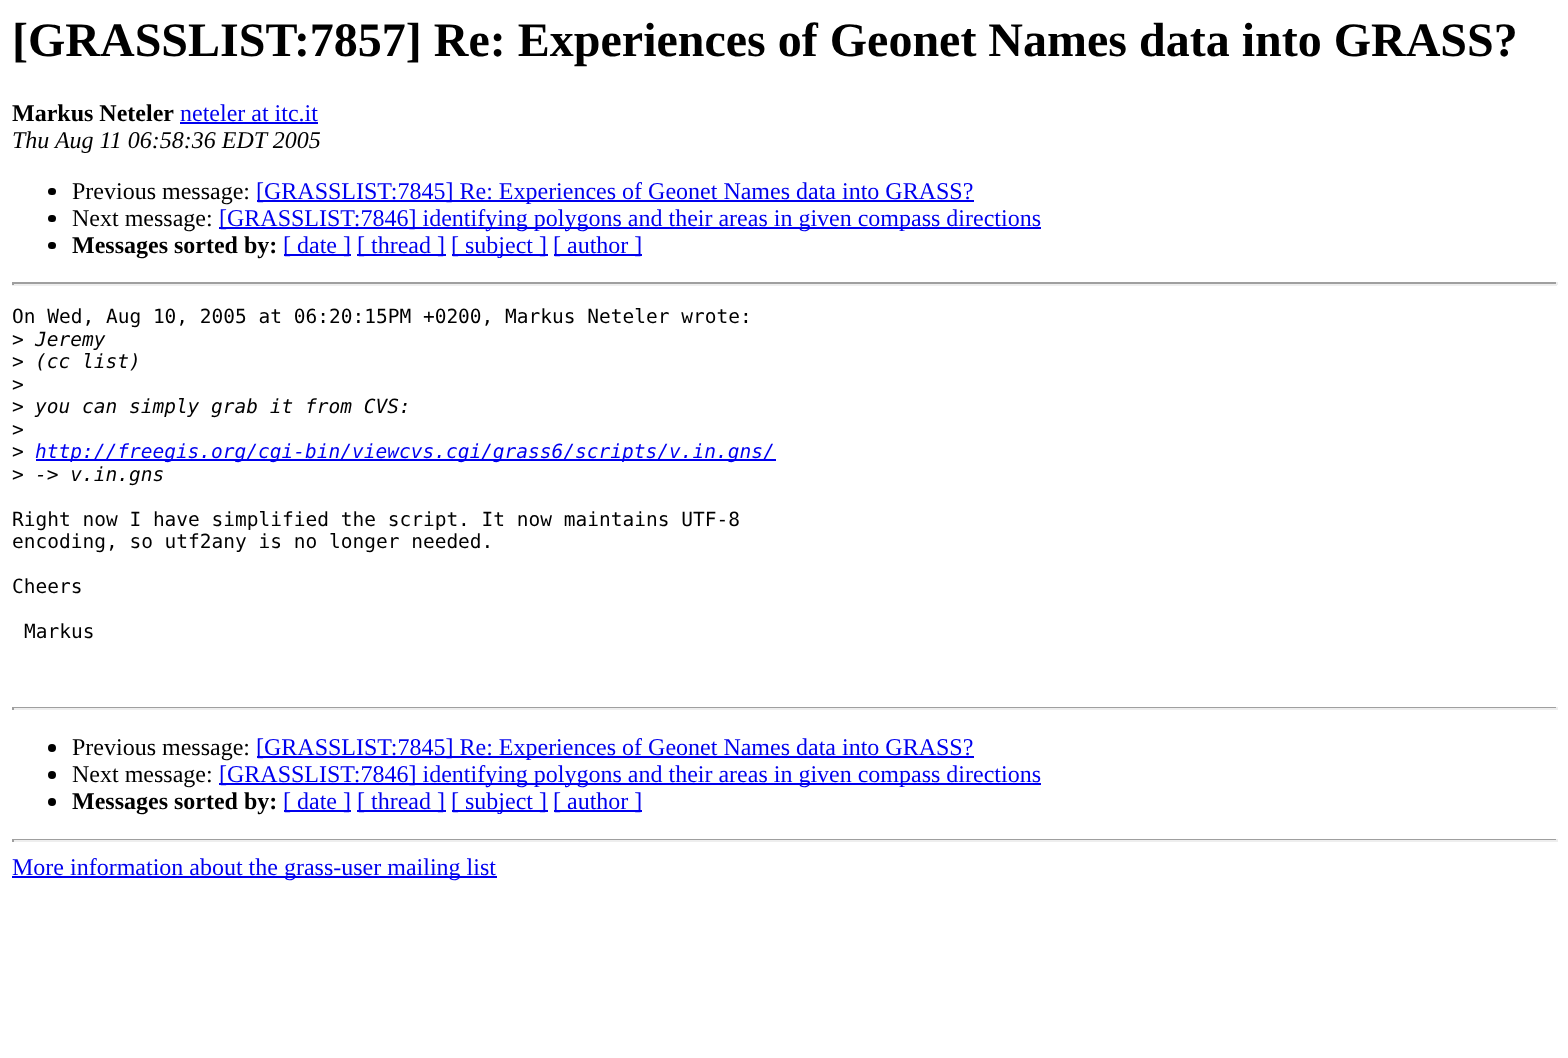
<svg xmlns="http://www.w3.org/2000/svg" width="1568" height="1058">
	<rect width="100%" height="100%" fill="#FFFFFF" />
	<text x="12" y="56" font-family="Liberation Serif" font-size="48" font-weight="700" fill="#000000">[GRASSLIST:7857] Re: Experiences of Geonet Names data into GRASS?</text>
	<text x="12" y="121" font-family="Liberation Serif" font-size="24" font-weight="700" fill="#000000">Markus Neteler</text>
	<text x="180" y="121" font-family="Liberation Serif" font-size="24" fill="#0000EE">neteler at itc.it</text>
	<rect x="180" y="122" width="138" height="2" fill="#0000EE" />
	<text x="12" y="148" font-family="Liberation Serif" font-size="24" font-style="italic" fill="#000000">Thu Aug 11 06:58:36 EDT 2005</text>
	<rect x="48" y="188" width="8" height="7" rx="3.5" fill="#000000" />
	<text x="72" y="199" font-family="Liberation Serif" font-size="24" fill="#000000">Previous message:</text>
	<rect x="257" y="200" width="717" height="2" fill="#0000EE" />
	<text x="256" y="199" font-family="Liberation Serif" font-size="24" fill="#0000EE">[GRASSLIST:7845] Re: Experiences of Geonet Names data into GRASS?</text>
	<rect x="48" y="215" width="8" height="7" rx="3.5" fill="#000000" />
	<text x="72" y="226" font-family="Liberation Serif" font-size="24" fill="#000000">Next message:</text>
	<rect x="219" y="227" width="822" height="2" fill="#0000EE" />
	<text x="219" y="226" font-family="Liberation Serif" font-size="24" fill="#0000EE">[GRASSLIST:7846] identifying polygons and their areas in given compass directions</text>
	<rect x="48" y="242" width="8" height="7" rx="3.5" fill="#000000" />
	<text x="72" y="253" font-family="Liberation Serif" font-size="24" font-weight="700" fill="#000000">Messages sorted by:</text>
	<rect x="284" y="254" width="67" height="2" fill="#0000EE" />
	<text x="283" y="253" font-family="Liberation Serif" font-size="24" fill="#0000EE">[ date ]</text>
	<rect x="357" y="254" width="89" height="2" fill="#0000EE" />
	<text x="357" y="253" font-family="Liberation Serif" font-size="24" fill="#0000EE">[ thread ]</text>
	<rect x="452" y="254" width="96" height="2" fill="#0000EE" />
	<text x="451" y="253" font-family="Liberation Serif" font-size="24" fill="#0000EE">[ subject ]</text>
	<rect x="554" y="254" width="88" height="2" fill="#0000EE" />
	<text x="553" y="253" font-family="Liberation Serif" font-size="24" fill="#0000EE">[ author ]</text>
	<rect x="12" y="282" width="1545" height="2" fill="#9F9F9F" />
	<rect x="1556" y="282" width="2" height="3" fill="#EEEEEE" />
	<rect x="12" y="284" width="1545" height="2" fill="#EEEEEE" />
	<rect x="12" y="282" width="2" height="3" fill="#9F9F9F" />
	<g font-family="DejaVu Sans Mono" font-size="19.5" fill="#000000">
		<text x="12" y="323">On Wed, Aug 10, 2005 at 06:20:15PM +0200, Markus Neteler wrote:</text>
		<text x="12" y="346">&gt;</text>
	</g>
	<text x="35" y="346" font-family="DejaVu Sans Mono" font-size="19.5" font-style="italic" fill="#000000">Jeremy</text>
	<text x="12" y="368" font-family="DejaVu Sans Mono" font-size="19.5" fill="#000000">&gt;</text>
	<text x="35" y="368" font-family="DejaVu Sans Mono" font-size="19.5" font-style="italic" fill="#000000">(cc list)</text>
	<g font-family="DejaVu Sans Mono" font-size="19.5" fill="#000000">
		<text x="12" y="391">&gt;</text>
		<text x="12" y="413">&gt;</text>
	</g>
	<text x="35" y="413" font-family="DejaVu Sans Mono" font-size="19.5" font-style="italic" fill="#000000">you can simply grab it from CVS:</text>
	<g font-family="DejaVu Sans Mono" font-size="19.5" fill="#000000">
		<text x="12" y="436">&gt;</text>
		<text x="12" y="458">&gt;</text>
	</g>
	<rect x="36" y="459" width="740" height="2" fill="#0000EE" />
	<text x="35" y="458" font-family="DejaVu Sans Mono" font-size="19.5" font-style="italic" fill="#0000EE">http://freegis.org/cgi-bin/viewcvs.cgi/grass6/scripts/v.in.gns/</text>
	<text x="12" y="481" font-family="DejaVu Sans Mono" font-size="19.5" fill="#000000">&gt;</text>
	<text x="35" y="481" font-family="DejaVu Sans Mono" font-size="19.5" font-style="italic" fill="#000000">-&gt; v.in.gns</text>
	<g font-family="DejaVu Sans Mono" font-size="19.5" fill="#000000">
		<text x="12" y="526">Right now I have simplified the script. It now maintains UTF-8</text>
		<text x="12" y="548">encoding, so utf2any is no longer needed.</text>
		<text x="12" y="593">Cheers</text>
		<text x="24" y="638">Markus</text>
	</g>
	<rect x="12" y="707" width="1545" height="1" fill="#9F9F9F" />
	<rect x="1556" y="707" width="2" height="3" fill="#EEEEEE" />
	<rect x="12" y="708" width="1545" height="2" fill="#EEEEEE" />
	<rect x="12" y="707" width="2" height="3" fill="#9F9F9F" />
	<circle cx="52" cy="748" r="4" fill="#000000" />
	<text x="72" y="755" font-family="Liberation Serif" font-size="24" fill="#000000">Previous message:</text>
	<rect x="257" y="756" width="717" height="2" fill="#0000EE" />
	<text x="256" y="755" font-family="Liberation Serif" font-size="24" fill="#0000EE">[GRASSLIST:7845] Re: Experiences of Geonet Names data into GRASS?</text>
	<circle cx="52" cy="775" r="4" fill="#000000" />
	<text x="72" y="782" font-family="Liberation Serif" font-size="24" fill="#000000">Next message:</text>
	<rect x="219" y="783" width="822" height="2" fill="#0000EE" />
	<text x="219" y="782" font-family="Liberation Serif" font-size="24" fill="#0000EE">[GRASSLIST:7846] identifying polygons and their areas in given compass directions</text>
	<circle cx="52" cy="802" r="4" fill="#000000" />
	<text x="72" y="809" font-family="Liberation Serif" font-size="24" font-weight="700" fill="#000000">Messages sorted by:</text>
	<rect x="284" y="810" width="67" height="2" fill="#0000EE" />
	<text x="283" y="809" font-family="Liberation Serif" font-size="24" fill="#0000EE">[ date ]</text>
	<rect x="357" y="810" width="89" height="2" fill="#0000EE" />
	<text x="357" y="809" font-family="Liberation Serif" font-size="24" fill="#0000EE">[ thread ]</text>
	<rect x="452" y="810" width="96" height="2" fill="#0000EE" />
	<text x="451" y="809" font-family="Liberation Serif" font-size="24" fill="#0000EE">[ subject ]</text>
	<rect x="554" y="810" width="88" height="2" fill="#0000EE" />
	<text x="553" y="809" font-family="Liberation Serif" font-size="24" fill="#0000EE">[ author ]</text>
	<rect x="12" y="839" width="1545" height="1" fill="#9F9F9F" />
	<rect x="1556" y="839" width="2" height="3" fill="#EEEEEE" />
	<rect x="12" y="840" width="1545" height="2" fill="#EEEEEE" />
	<rect x="12" y="839" width="2" height="3" fill="#9F9F9F" />
	<rect x="12" y="876" width="485" height="2" fill="#0000EE" />
	<text x="12" y="875" font-family="Liberation Serif" font-size="24" fill="#0000EE">More information about the grass-user mailing list</text>
</svg>
